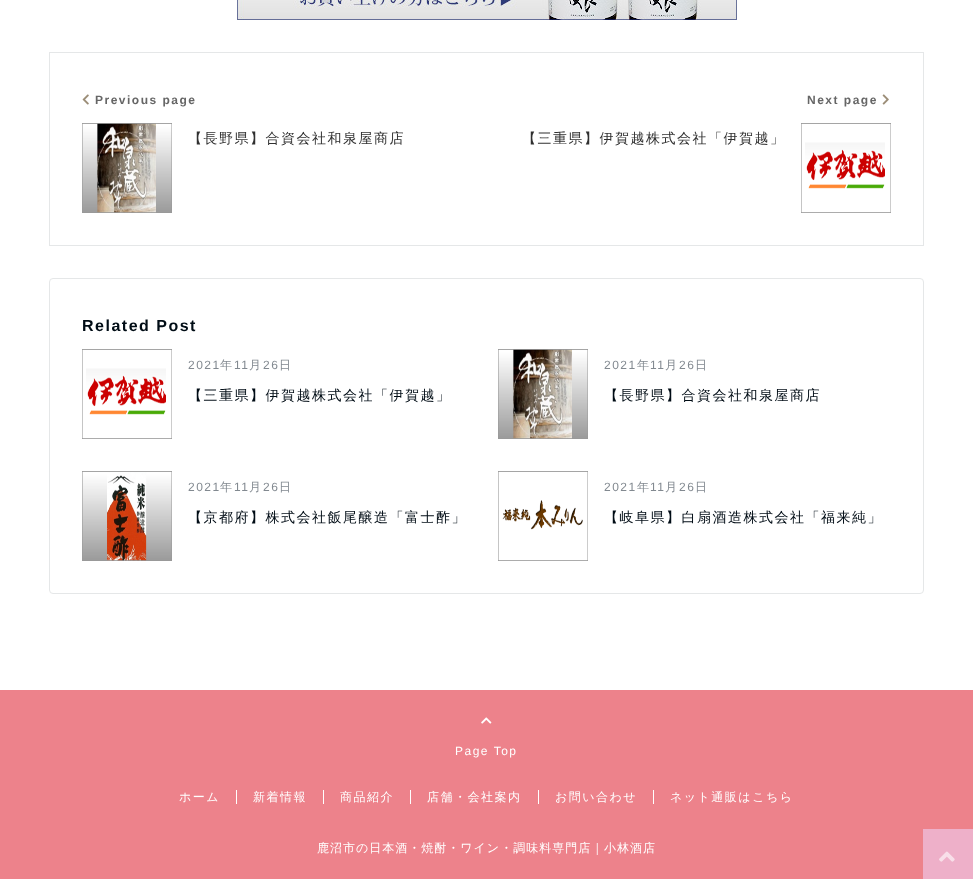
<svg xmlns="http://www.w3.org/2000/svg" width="973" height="879">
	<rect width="100%" height="100%" fill="#FFFFFF" />
	<image x="237" y="0" width="500" height="20" href="assets/img1.png" />
	<rect x="49.5" y="52.5" width="874" height="193" fill="none" stroke="#E5E7E8" />
	<image x="82" y="94" width="7" height="11" href="assets/img2.png" />
	<text x="95" y="104" font-family="Liberation Sans" font-size="12" font-weight="700" letter-spacing="1.5" fill="#666666">Previous page</text>
	<image x="82" y="123" width="90" height="90" href="assets/img3.png" />
	<text x="188" y="143" font-family="WenQuanYi Zen Hei" font-size="14" font-weight="500" letter-spacing="1.5" fill="#303030">【長野県】合資会社和泉屋商店</text>
	<text x="807" y="104" font-family="Liberation Sans" font-size="12" font-weight="700" letter-spacing="1.5" fill="#666666">Next page</text>
	<image x="882" y="94" width="7" height="11" href="assets/img4.png" />
	<text x="522" y="143" font-family="WenQuanYi Zen Hei" font-size="14" font-weight="500" letter-spacing="1.5" fill="#303030">【三重県】伊賀越株式会社「伊賀越」</text>
	<image x="801" y="123" width="90" height="90" href="assets/img5.png" />
	<rect x="49.5" y="278.5" width="874" height="315" rx="3.5" fill="none" stroke="#E5E7E8" />
	<text x="82" y="331" font-family="Liberation Sans" font-size="16" font-weight="700" letter-spacing="1.5" fill="#000C15">Related Post</text>
	<image x="82" y="349" width="90" height="90" href="assets/img6.png" />
	<text x="188" y="369" font-family="Liberation Sans" font-size="12" letter-spacing="1.5" fill="#828990">2021</text>
	<text x="220" y="369" font-family="WenQuanYi Zen Hei" font-size="12" font-weight="500" letter-spacing="1.5" fill="#828990">年</text>
	<text x="234" y="369" font-family="Liberation Sans" font-size="12" letter-spacing="1.5" fill="#828990">11</text>
	<text x="249" y="369" font-family="WenQuanYi Zen Hei" font-size="12" font-weight="500" letter-spacing="1.5" fill="#828990">月</text>
	<text x="263" y="369" font-family="Liberation Sans" font-size="12" letter-spacing="1.5" fill="#828990">26</text>
	<text x="279" y="369" font-family="WenQuanYi Zen Hei" font-size="12" font-weight="500" letter-spacing="1.5" fill="#828990">日</text>
	<text x="188" y="400" font-family="WenQuanYi Zen Hei" font-size="14" font-weight="500" letter-spacing="1.5" fill="#000C15">【三重県】伊賀越株式会社「伊賀越」</text>
	<image x="498" y="349" width="90" height="90" href="assets/img7.png" />
	<text x="604" y="369" font-family="Liberation Sans" font-size="12" letter-spacing="1.5" fill="#828990">2021</text>
	<text x="637" y="369" font-family="WenQuanYi Zen Hei" font-size="12" font-weight="500" letter-spacing="1.5" fill="#828990">年</text>
	<text x="650" y="369" font-family="Liberation Sans" font-size="12" letter-spacing="1.5" fill="#828990">11</text>
	<text x="665" y="369" font-family="WenQuanYi Zen Hei" font-size="12" font-weight="500" letter-spacing="1.5" fill="#828990">月</text>
	<text x="679" y="369" font-family="Liberation Sans" font-size="12" letter-spacing="1.5" fill="#828990">26</text>
	<text x="695" y="369" font-family="WenQuanYi Zen Hei" font-size="12" font-weight="500" letter-spacing="1.5" fill="#828990">日</text>
	<text x="604" y="400" font-family="WenQuanYi Zen Hei" font-size="14" font-weight="500" letter-spacing="1.5" fill="#000C15">【長野県】合資会社和泉屋商店</text>
	<image x="82" y="471" width="90" height="90" href="assets/img8.png" />
	<text x="188" y="491" font-family="Liberation Sans" font-size="12" letter-spacing="1.5" fill="#828990">2021</text>
	<text x="220" y="491" font-family="WenQuanYi Zen Hei" font-size="12" font-weight="500" letter-spacing="1.5" fill="#828990">年</text>
	<text x="234" y="491" font-family="Liberation Sans" font-size="12" letter-spacing="1.5" fill="#828990">11</text>
	<text x="249" y="491" font-family="WenQuanYi Zen Hei" font-size="12" font-weight="500" letter-spacing="1.5" fill="#828990">月</text>
	<text x="263" y="491" font-family="Liberation Sans" font-size="12" letter-spacing="1.5" fill="#828990">26</text>
	<text x="279" y="491" font-family="WenQuanYi Zen Hei" font-size="12" font-weight="500" letter-spacing="1.5" fill="#828990">日</text>
	<text x="188" y="522" font-family="WenQuanYi Zen Hei" font-size="14" font-weight="500" letter-spacing="1.5" fill="#000C15">【京都府】株式会社飯尾醸造「富士酢」</text>
	<image x="498" y="471" width="90" height="90" href="assets/img9.png" />
	<text x="604" y="491" font-family="Liberation Sans" font-size="12" letter-spacing="1.5" fill="#828990">2021</text>
	<text x="637" y="491" font-family="WenQuanYi Zen Hei" font-size="12" font-weight="500" letter-spacing="1.5" fill="#828990">年</text>
	<text x="650" y="491" font-family="Liberation Sans" font-size="12" letter-spacing="1.5" fill="#828990">11</text>
	<text x="665" y="491" font-family="WenQuanYi Zen Hei" font-size="12" font-weight="500" letter-spacing="1.5" fill="#828990">月</text>
	<text x="679" y="491" font-family="Liberation Sans" font-size="12" letter-spacing="1.5" fill="#828990">26</text>
	<text x="695" y="491" font-family="WenQuanYi Zen Hei" font-size="12" font-weight="500" letter-spacing="1.5" fill="#828990">日</text>
	<text x="604" y="522" font-family="WenQuanYi Zen Hei" font-size="14" font-weight="500" letter-spacing="1.5" fill="#000C15">【岐阜県】白扇酒造株式会社「福来純」</text>
	<rect x="0" y="690" width="973" height="189" fill="#ED828B" />
	<image x="481" y="717" width="11" height="7" href="assets/img10.png" />
	<text x="455" y="755" font-family="Liberation Sans" font-size="12" letter-spacing="1.5" fill="#FFFFFF">Page Top</text>
	<text x="179" y="801" font-family="WenQuanYi Zen Hei" font-size="12" font-weight="500" letter-spacing="1.5" fill="#FFFFFF">ホーム</text>
	<rect x="236" y="790" width="1" height="14" fill="#FFFFFF" />
	<text x="253" y="801" font-family="WenQuanYi Zen Hei" font-size="12" font-weight="500" letter-spacing="1.5" fill="#FFFFFF">新着情報</text>
	<rect x="323" y="790" width="1" height="14" fill="#FFFFFF" />
	<text x="340" y="801" font-family="WenQuanYi Zen Hei" font-size="12" font-weight="500" letter-spacing="1.5" fill="#FFFFFF">商品紹介</text>
	<rect x="410" y="790" width="1" height="14" fill="#FFFFFF" />
	<text x="427" y="801" font-family="WenQuanYi Zen Hei" font-size="12" font-weight="500" letter-spacing="1.5" fill="#FFFFFF">店舗・会社案内</text>
	<rect x="538" y="790" width="1" height="14" fill="#FFFFFF" />
	<text x="555" y="801" font-family="WenQuanYi Zen Hei" font-size="12" font-weight="500" letter-spacing="1.5" fill="#FFFFFF">お問い合わせ</text>
	<rect x="653" y="790" width="1" height="14" fill="#FFFFFF" />
	<text x="670" y="801" font-family="WenQuanYi Zen Hei" font-size="12" font-weight="500" letter-spacing="1.5" fill="#FFFFFF">ネット通販はこちら</text>
	<text x="317" y="852" font-family="WenQuanYi Zen Hei" font-size="12" font-weight="500" letter-spacing="1" fill="#FFFFFF">鹿沼市の日本酒・焼酎・ワイン・調味料専門店｜小林酒店</text>
	<rect x="923" y="829" width="50" height="50" fill="#EEB0C9" />
	<image x="939" y="851" width="16" height="11" href="assets/img11.png" />
</svg>
